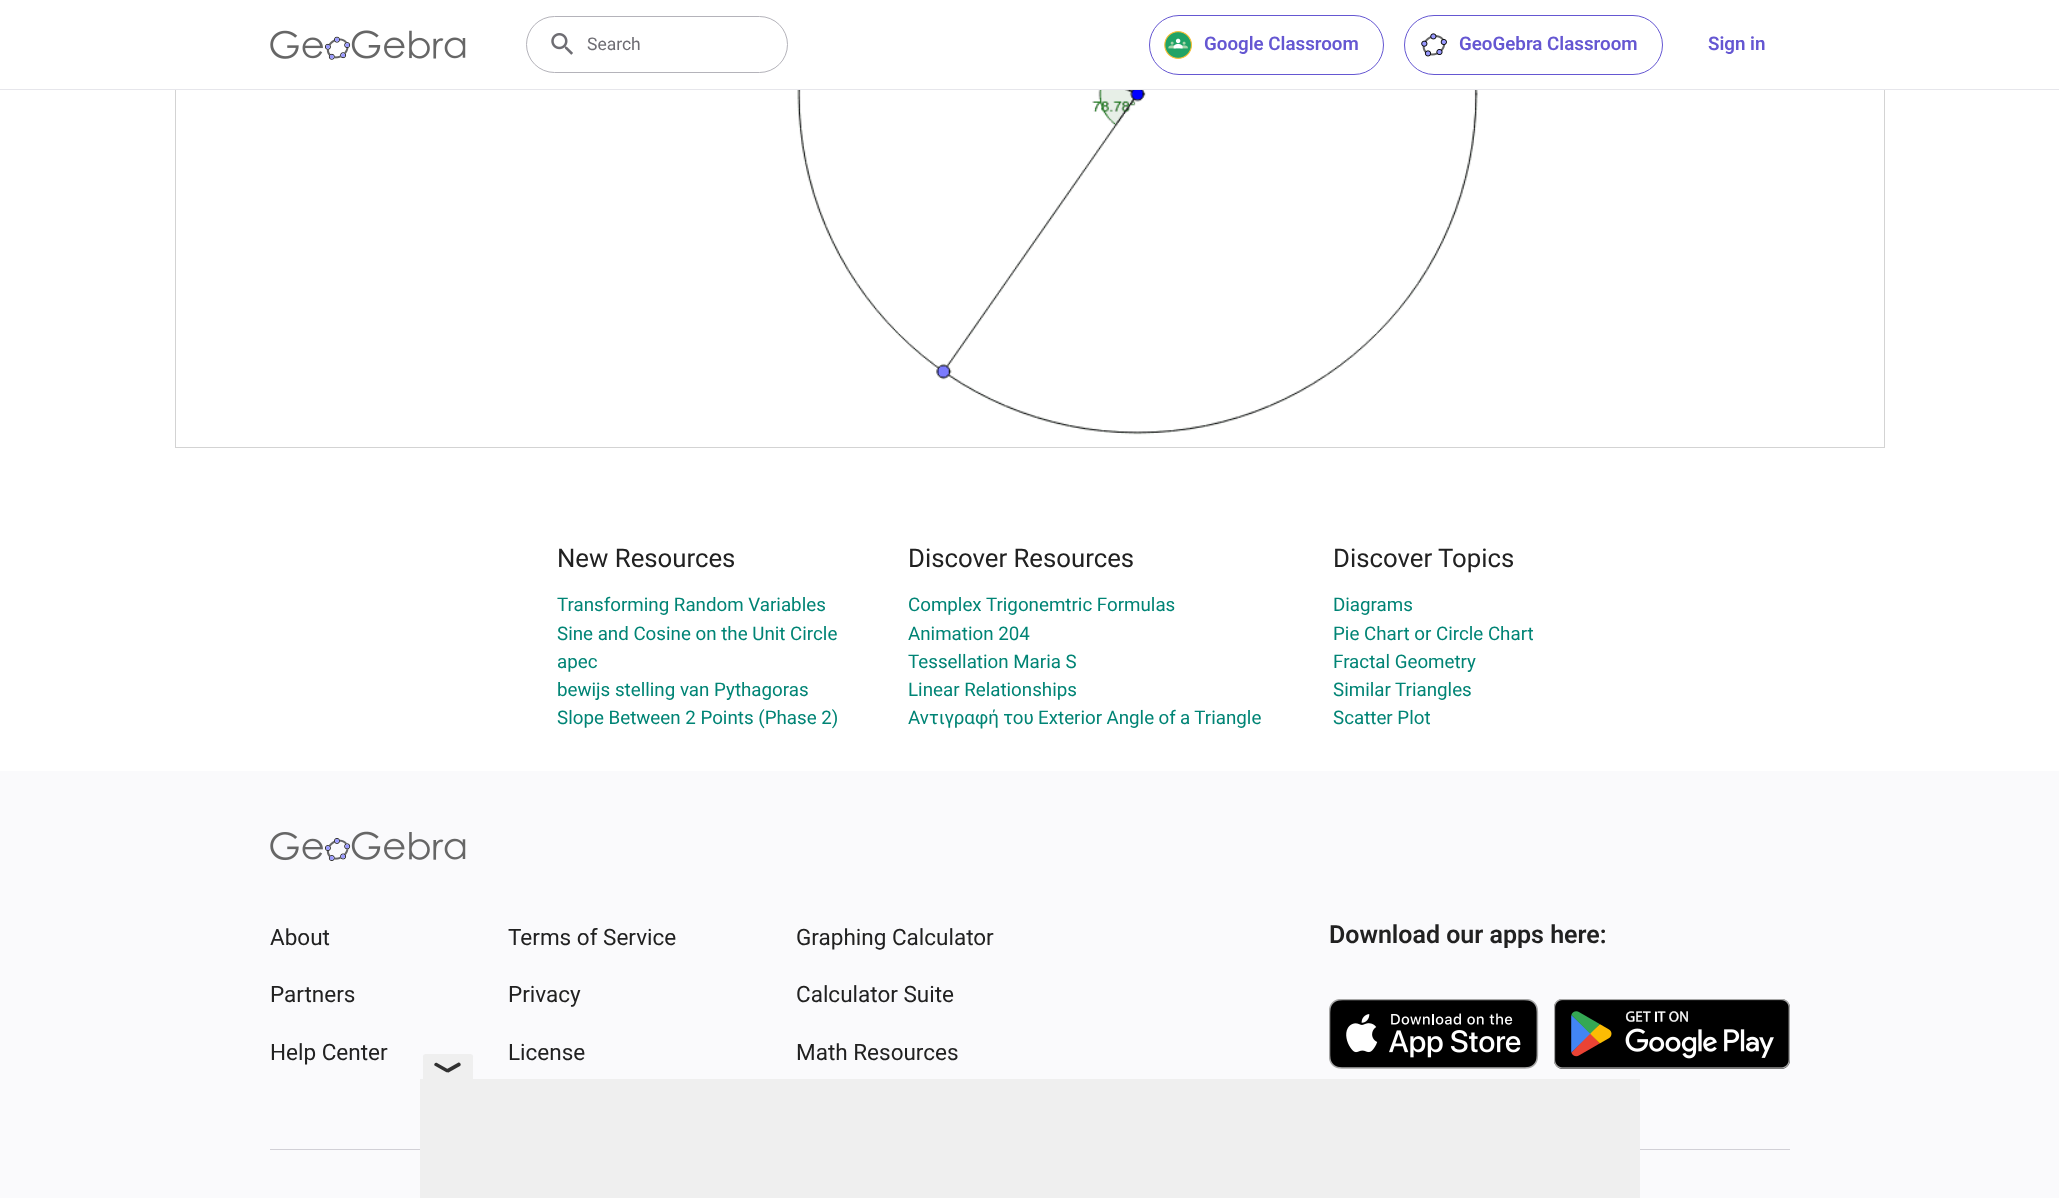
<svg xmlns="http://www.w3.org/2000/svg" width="2059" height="1198">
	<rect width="100%" height="100%" fill="#FFFFFF" />
	<image x="797" y="90" width="681" height="345" href="assets/img5.png" />
	<rect x="175.5" y="-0.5" width="1709" height="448" fill="none" stroke="#D3D3D3" />
	<rect x="175" y="0" width="1710" height="89" fill="#FFFFFF" />
	<rect x="0" y="89" width="2059" height="1" fill="#E6E6EB" />
	<image x="270" y="30" width="196" height="30" href="assets/img1.png" />
	<rect x="526.5" y="16.5" width="261" height="56" rx="28" fill="none" stroke="#B4B3BA" />
	<image x="551" y="33" width="22" height="22" href="assets/img2.png" />
	<text x="587" y="50" font-family="Roboto" font-size="17.5" fill="#6E6D73">Search</text>
	<rect x="1149.5" y="15.5" width="234" height="59" rx="29.5" fill="none" stroke="#6557D2" />
	<image x="1164" y="31" width="28" height="28" href="assets/img3.png" />
	<text x="1204" y="50" font-family="Roboto" font-size="18.75" font-weight="600" fill="#6557D2">Google Classroom</text>
	<rect x="1404.5" y="15.5" width="258" height="59" rx="29.5" fill="none" stroke="#6557D2" />
	<image x="1421" y="33" width="26" height="24" href="assets/img4.png" />
	<g font-family="Roboto" font-size="18.75" font-weight="600" fill="#6557D2">
		<text x="1459" y="50">GeoGebra Classroom</text>
		<text x="1708" y="50">Sign in</text>
	</g>
	<text x="557" y="567" font-family="Roboto" font-size="25.75" fill="#212121">New Resources</text>
	<g font-family="Roboto" font-size="18.75" fill="#008475">
		<text x="557" y="611">Transforming Random Variables</text>
		<text x="557" y="640">Sine and Cosine on the Unit Circle</text>
		<text x="557" y="668">apec</text>
		<text x="557" y="696">bewijs stelling van Pythagoras</text>
		<text x="557" y="724">Slope Between 2 Points (Phase 2)</text>
	</g>
	<text x="908" y="567" font-family="Roboto" font-size="25.75" fill="#212121">Discover Resources</text>
	<g font-family="Roboto" font-size="18.75" fill="#008475">
		<text x="908" y="611">Complex Trigonemtric Formulas</text>
		<text x="908" y="640">Animation 204</text>
		<text x="908" y="668">Tessellation Maria S</text>
		<text x="908" y="696">Linear Relationships</text>
		<text x="908" y="724" word-spacing="-0.25">Αντιγραφή του Exterior Angle of a Triangle</text>
	</g>
	<text x="1333" y="567" font-family="Roboto" font-size="25.75" fill="#212121">Discover Topics</text>
	<g font-family="Roboto" font-size="18.75" fill="#008475">
		<text x="1333" y="611">Diagrams</text>
		<text x="1333" y="640">Pie Chart or Circle Chart</text>
		<text x="1333" y="668">Fractal Geometry</text>
		<text x="1333" y="696">Similar Triangles</text>
		<text x="1333" y="724">Scatter Plot</text>
	</g>
	<rect x="0" y="771" width="2059" height="427" fill="#FAFAFC" />
	<image x="270" y="831" width="196" height="30" href="assets/img6.png" />
	<g font-family="Roboto" font-size="22.5" fill="#212121">
		<text x="270" y="945">About</text>
		<text x="270" y="1002">Partners</text>
		<text x="270" y="1060">Help Center</text>
		<text x="508" y="945">Terms of Service</text>
		<text x="508" y="1002">Privacy</text>
		<text x="508" y="1060">License</text>
		<text x="796" y="945">Graphing Calculator</text>
		<text x="796" y="1002">Calculator Suite</text>
		<text x="796" y="1060">Math Resources</text>
	</g>
	<text x="1329" y="943" font-family="Roboto" font-size="25" font-weight="600" fill="#212121">Download our apps here:</text>
	<image x="1329" y="999" width="210" height="70" href="assets/img7.png" />
	<image x="1554" y="999" width="236" height="70" href="assets/img8.png" />
	<rect x="270" y="1149" width="1520" height="1" fill="#D1D0D6" />
	<path d="M425.5 1054H470.5C472 1054 473 1055 473 1056.5V1079H423V1056.5C423 1055 424 1054 425.5 1054Z" fill="#EFEFEF" />
	<path d="M437 1063L448.5 1069.5C449.5 1071 447.5 1073 446 1072L434.5 1065.5C433.5 1064 435.5 1062 437 1063Z" fill="#313131" />
	<path d="M447 1069L458.5 1062.5C460.5 1062.5 461.5 1065 460 1066L448.5 1072.5C446.5 1072.5 445.5 1070 447 1069Z" fill="#313131" />
	<rect x="420" y="1079" width="1220" height="119" fill="#EFEFEF" />
</svg>
